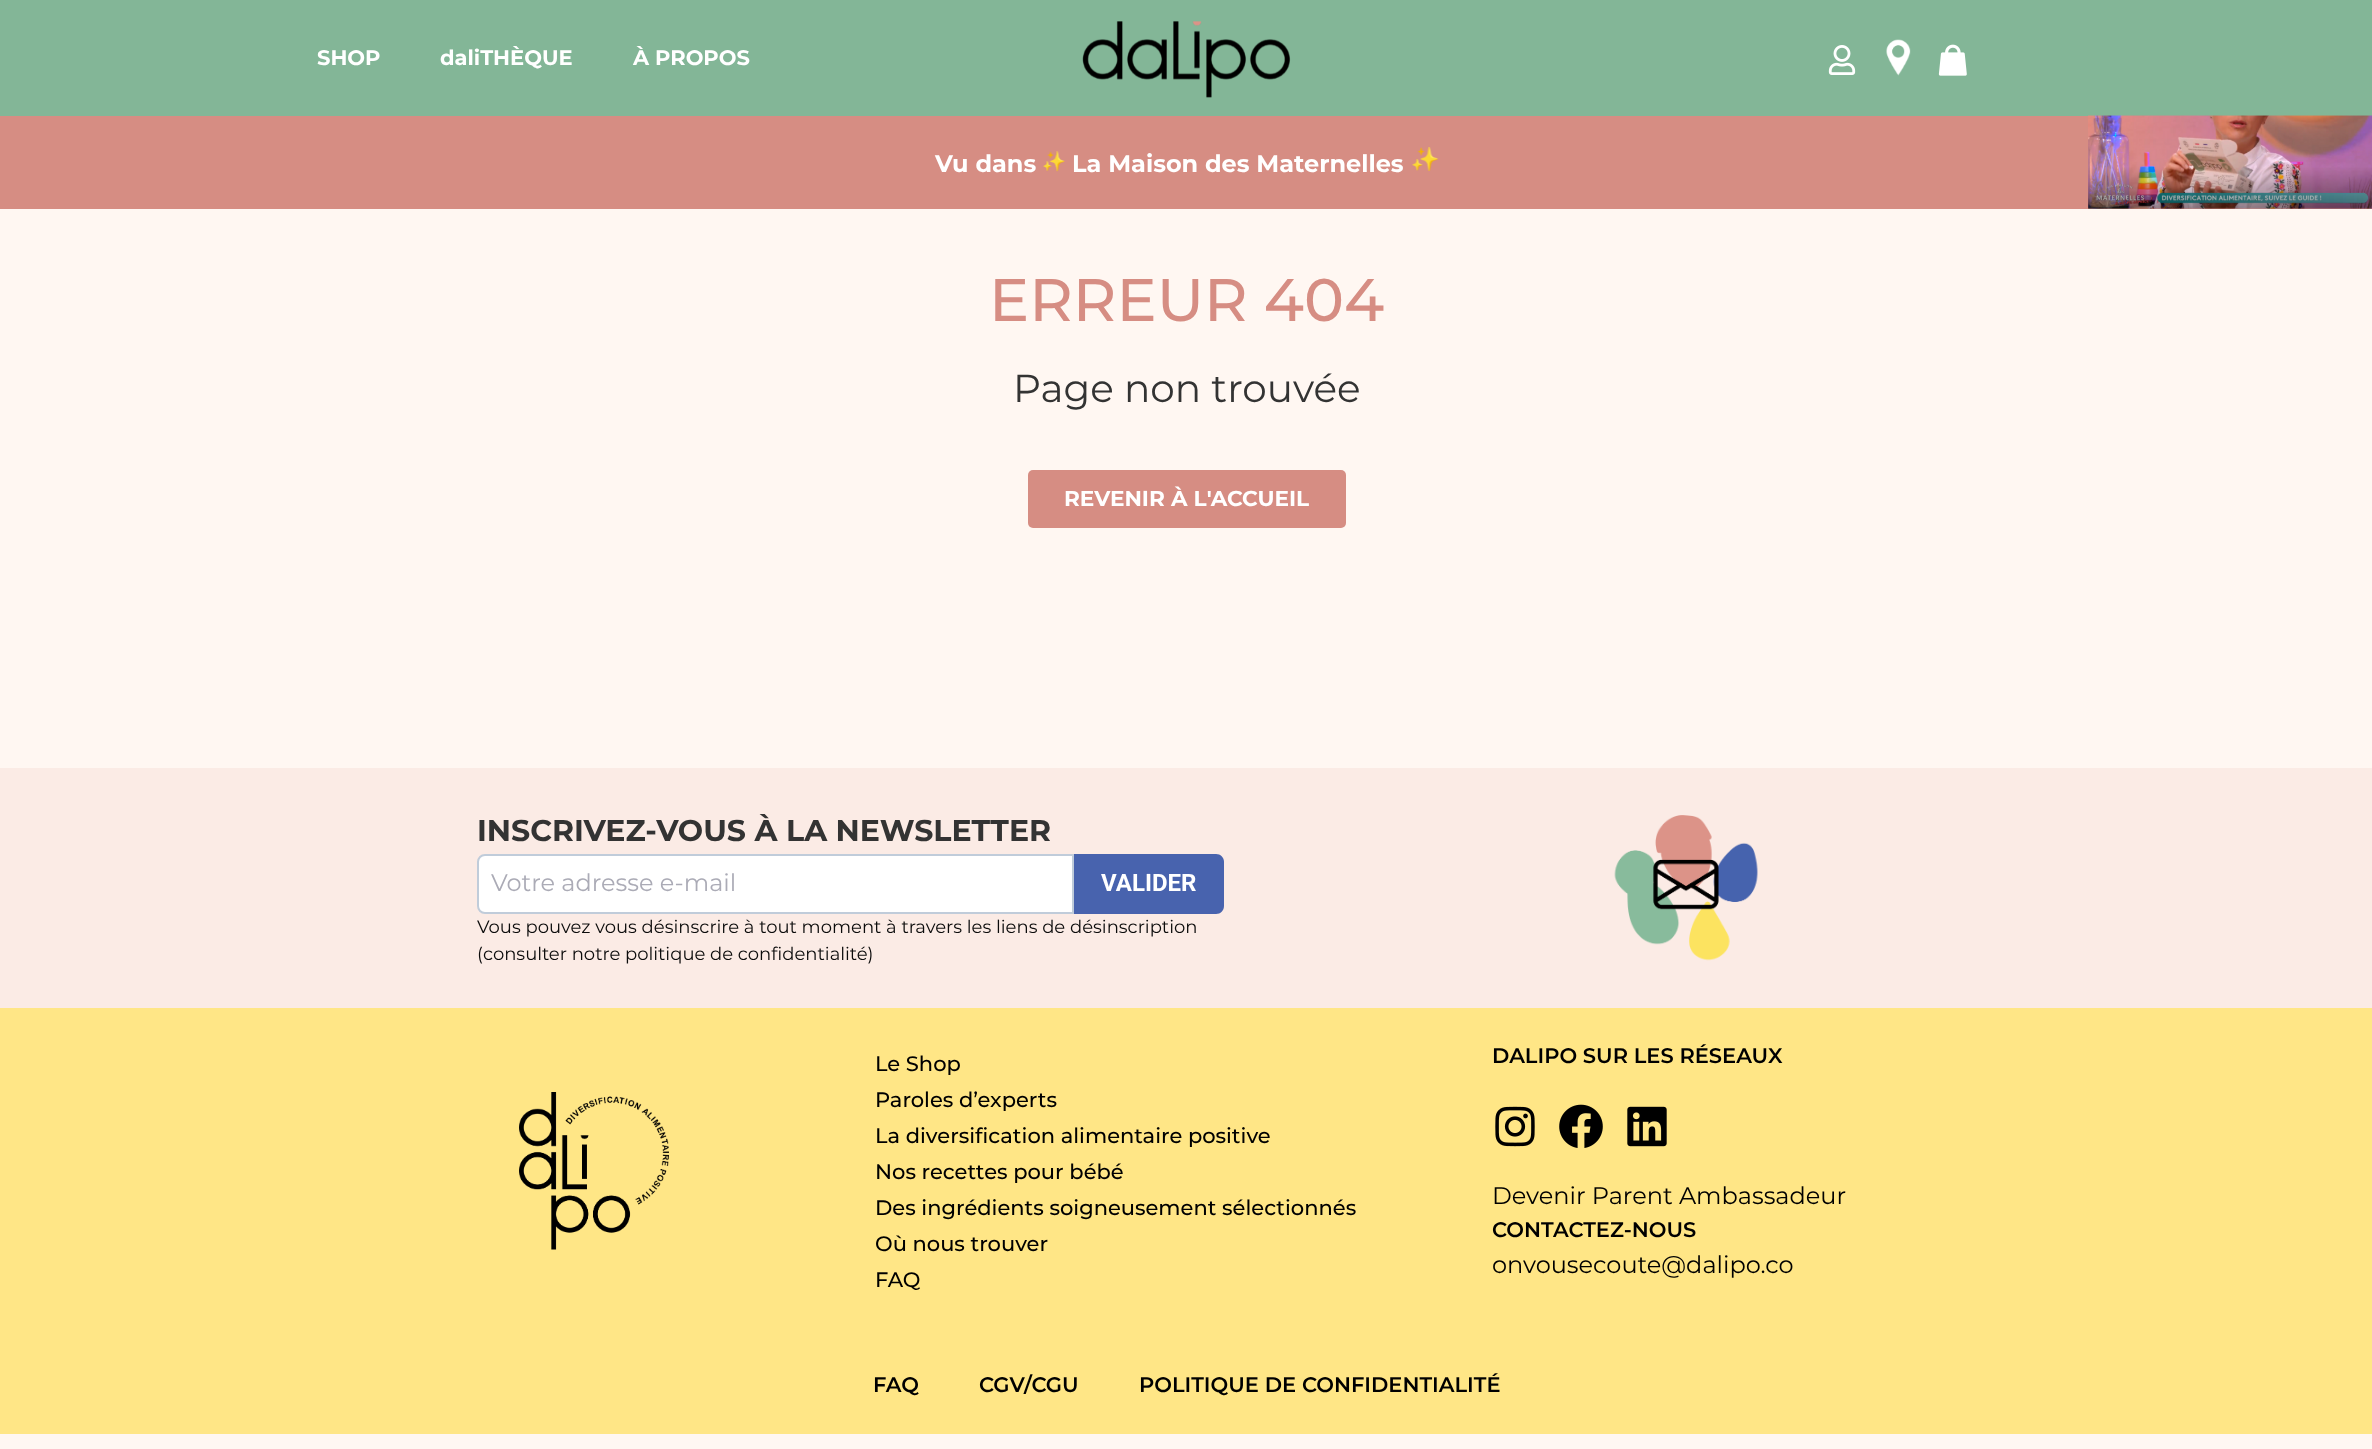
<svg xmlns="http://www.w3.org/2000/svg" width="2372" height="1449">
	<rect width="100%" height="100%" fill="#FFF7F2" />
	<rect x="0" y="0" width="2372" height="116" fill="#83B697" />
	<g font-family="Montserrat" font-size="21" font-weight="700" fill="#FFFFFF">
		<text x="317" y="65">SHOP</text>
		<text x="440" y="65">daliTHÈQUE</text>
		<text x="633" y="65">À PROPOS</text>
	</g>
	<image x="1082" y="21" width="209" height="77" href="assets/img1.png" />
	<image x="1828" y="45" width="28" height="30" href="assets/img2.png" />
	<image x="1886" y="39" width="25" height="37" href="assets/img3.png" />
	<image x="1938" y="44" width="29" height="32" href="assets/img4.png" />
	<rect x="0" y="116" width="2372" height="93" fill="#D68D83" />
	<image x="2088" y="115" width="284" height="94" href="assets/img5.png" />
	<text x="935" y="172" font-family="Montserrat" font-size="24" font-weight="700" fill="#FFFFFF">Vu dans</text>
	<image x="1043" y="151" width="22" height="21" href="assets/img6.png" />
	<text x="1072" y="172" font-family="Montserrat" font-size="24" font-weight="700" fill="#FFFFFF">La Maison des Maternelles</text>
	<image x="1412" y="147" width="27" height="24" href="assets/img7.png" />
	<text x="989" y="321" font-family="Montserrat" font-size="60" font-weight="500" fill="#D68D83">ERREUR 404</text>
	<text x="1013" y="402" font-family="Montserrat" font-size="39" fill="#333333">Page non trouvée</text>
	<rect x="1028" y="470" width="318" height="58" rx="5" fill="#D68D83" />
	<text x="1064" y="506" font-family="Montserrat" font-size="21.6" font-weight="700" fill="#FFFFFF">REVENIR À L'ACCUEIL</text>
	<rect x="0" y="768" width="2372" height="240" fill="#FBEBE5" />
	<text x="477" y="841" font-family="Montserrat" font-size="30" font-weight="700" fill="#333333">INSCRIVEZ-VOUS À LA NEWSLETTER</text>
	<path d="M485 855H1073V913H485C481 913 478 910 478 906V862C478 858 481 855 485 855Z" fill="#FFFFFF" stroke="#C0CCDA" stroke-width="2" />
	<text x="491" y="891" font-family="Montserrat" font-size="24" fill="#ABABB6">Votre adresse e-mail</text>
	<path d="M1074 854H1216C1220.5 854 1224 857.5 1224 862V906C1224 910.5 1220.5 914 1216 914H1074Z" fill="#4863AE" />
	<text x="1101" y="891" font-family="Roboto" font-size="24" font-weight="700" fill="#FFFFFF">VALIDER</text>
	<g font-family="Montserrat" font-size="18" fill="#0B0B0B">
		<text x="477" y="933">Vous pouvez vous désinscrire à tout moment à travers les liens de désinscription</text>
		<text x="477" y="960">(consulter notre politique de confidentialité)</text>
	</g>
	<image x="1614" y="815" width="144" height="146" href="assets/img8.png" />
	<rect x="0" y="1008" width="2372" height="426" fill="#FFE686" />
	<image x="519" y="1092" width="150" height="158" href="assets/img9.png" />
	<g font-family="Montserrat" font-size="21" font-weight="500" fill="#000000">
		<text x="875" y="1071">Le Shop</text>
		<text x="875" y="1107">Paroles d’experts</text>
		<text x="875" y="1143">La diversification alimentaire positive</text>
		<text x="875" y="1179">Nos recettes pour bébé</text>
		<text x="875" y="1215">Des ingrédients soigneusement sélectionnés</text>
		<text x="875" y="1251">Où nous trouver</text>
		<text x="875" y="1287">FAQ</text>
	</g>
	<text x="1492" y="1063" font-family="Montserrat" font-size="21" font-weight="600" fill="#000000">DALIPO SUR LES RÉSEAUX</text>
	<image x="1495" y="1106" width="40" height="41" href="assets/img10.png" />
	<image x="1559" y="1104" width="44" height="44" href="assets/img11.png" />
	<image x="1627" y="1106" width="40" height="41" href="assets/img12.png" />
	<text x="1492" y="1204" font-family="Montserrat" font-size="24" fill="#000000">Devenir Parent Ambassadeur</text>
	<text x="1492" y="1237" font-family="Montserrat" font-size="21" font-weight="600" fill="#000000">CONTACTEZ-NOUS</text>
	<text x="1492" y="1273" font-family="Montserrat" font-size="24" fill="#000000">onvousecoute@dalipo.co</text>
	<g font-family="Montserrat" font-size="21" font-weight="600" fill="#000000">
		<text x="873" y="1392">FAQ</text>
		<text x="979" y="1392">CGV/CGU</text>
		<text x="1139" y="1392">POLITIQUE DE CONFIDENTIALITÉ</text>
	</g>
</svg>
